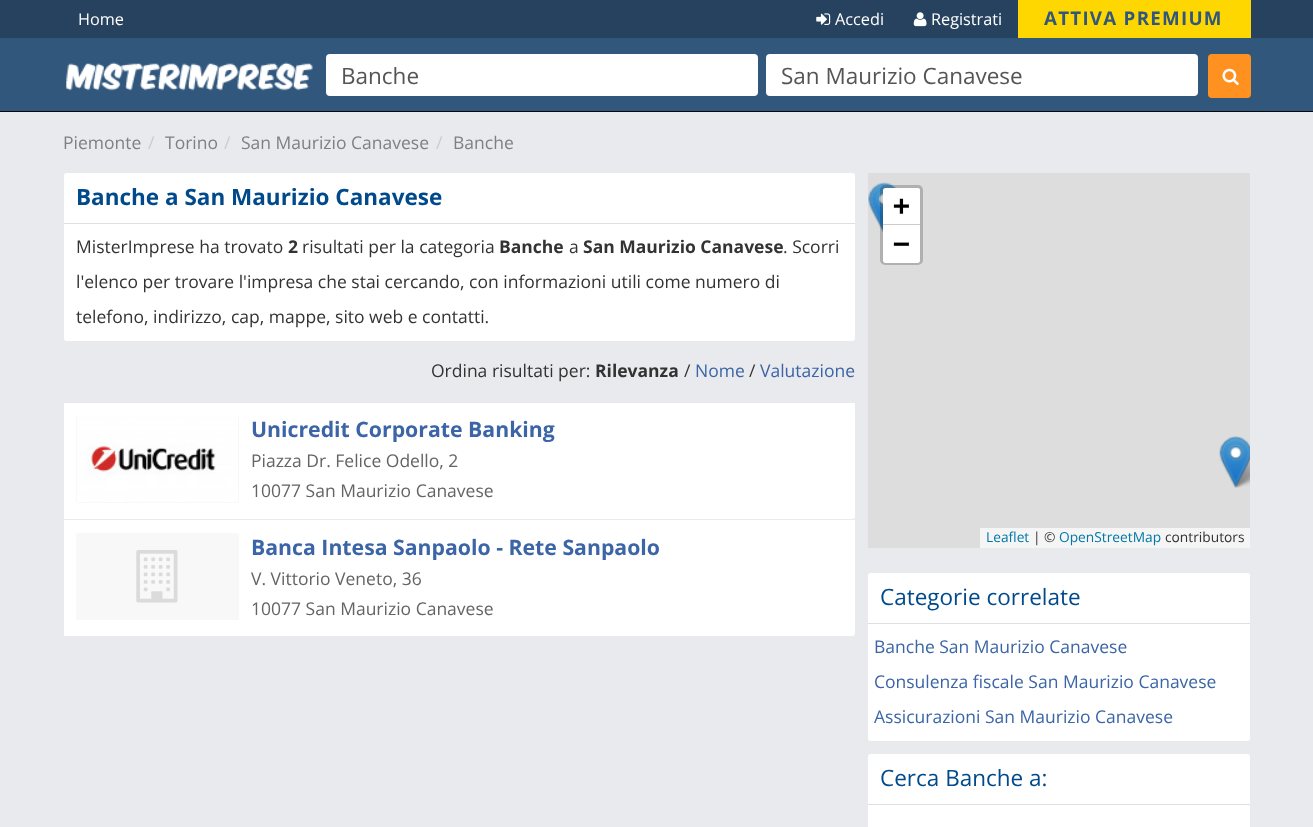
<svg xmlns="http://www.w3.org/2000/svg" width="1313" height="827">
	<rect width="100%" height="100%" fill="#E9EAEE" />
	<rect x="0" y="38" width="1313" height="73" fill="#31577D" />
	<rect x="0" y="111" width="1313" height="1" fill="#080808" />
	<rect x="0" y="0" width="1313" height="38" fill="#26425E" />
	<text x="78" y="25" font-family="Open Sans" font-size="16.25" fill="#FFFFFF">Home</text>
	<image x="816" y="13" width="15" height="12" href="assets/img1.png" />
	<text x="835" y="25" font-family="Open Sans" font-size="16.25" fill="#FFFFFF">Accedi</text>
	<image x="913" y="12" width="14" height="15" href="assets/img2.png" />
	<text x="931" y="25" font-family="Open Sans" font-size="16.25" fill="#FFFFFF">Registrati</text>
	<rect x="1018" y="0" width="233" height="38" fill="#FFD700" />
	<text x="1044" y="25" font-family="Open Sans" font-size="18.75" font-weight="700" letter-spacing="1.25" fill="#31577D">ATTIVA PREMIUM</text>
	<image x="66" y="62" width="247" height="29" href="assets/img3.png" />
	<rect x="326" y="54" width="432" height="42" rx="4" fill="#FFFFFF" />
	<text x="341" y="84" font-family="Open Sans" font-size="22.5" fill="#555555">Banche</text>
	<rect x="766" y="54" width="432" height="42" rx="4" fill="#FFFFFF" />
	<text x="781" y="84" font-family="Open Sans" font-size="22.5" fill="#555555">San Maurizio Canavese</text>
	<rect x="1208" y="54" width="43" height="44" rx="4" fill="#FF9121" />
	<image x="1222" y="68" width="17" height="17" href="assets/img4.png" />
	<text x="63" y="149" font-family="Open Sans" font-size="17.5" fill="#808080">Piemonte</text>
	<text x="148" y="149" font-family="Open Sans" font-size="17.5" fill="#CCCCCC">/</text>
	<text x="165" y="149" font-family="Open Sans" font-size="17.5" fill="#808080">Torino</text>
	<text x="224" y="149" font-family="Open Sans" font-size="17.5" fill="#CCCCCC">/</text>
	<text x="241" y="149" font-family="Open Sans" font-size="17.5" fill="#808080">San Maurizio Canavese</text>
	<text x="436" y="149" font-family="Open Sans" font-size="17.5" fill="#CCCCCC">/</text>
	<text x="453" y="149" font-family="Open Sans" font-size="17.5" fill="#808080">Banche</text>
	<path d="M66.5 173H852.5C854 173 855 174 855 175.5V224H64V175.5C64 174 65 173 66.5 173Z" fill="#FFFFFF" />
	<rect x="64" y="223" width="791" height="1" fill="#DFDFDF" />
	<text x="76" y="205" font-family="Open Sans" font-size="22.5" font-weight="700" fill="#004A8B">Banche a San Maurizio Canavese</text>
	<path d="M64 224H855V338.5C855 340 854 341 852.5 341H66.5C65 341 64 340 64 338.5Z" fill="#FFFFFF" />
	<text x="76" y="253" font-family="Open Sans" font-size="17.5" fill="#333333">MisterImprese ha trovato</text>
	<text x="288" y="253" font-family="Open Sans" font-size="17.5" font-weight="700" fill="#333333">2</text>
	<text x="302" y="253" font-family="Open Sans" font-size="17.5" fill="#333333">risultati per la categoria</text>
	<text x="499" y="253" font-family="Open Sans" font-size="17.5" font-weight="700" fill="#333333">Banche</text>
	<text x="569" y="253" font-family="Open Sans" font-size="17.5" fill="#333333">a</text>
	<text x="583" y="253" font-family="Open Sans" font-size="17.5" font-weight="700" fill="#333333">San Maurizio Canavese</text>
	<g font-family="Open Sans" font-size="17.5" fill="#333333">
		<text x="783" y="253">. Scorri</text>
		<text x="76" y="288">l'elenco per trovare l'impresa che stai cercando, con informazioni utili come numero di</text>
		<text x="76" y="323">telefono, indirizzo, cap, mappe, sito web e contatti.</text>
		<text x="431" y="377">Ordina risultati per:</text>
	</g>
	<text x="595" y="377" font-family="Open Sans" font-size="17.5" font-weight="700" fill="#333333">Rilevanza</text>
	<text x="684" y="377" font-family="Open Sans" font-size="17.5" fill="#333333">/</text>
	<text x="695" y="377" font-family="Open Sans" font-size="17.5" fill="#3B65A6">Nome</text>
	<text x="749" y="377" font-family="Open Sans" font-size="17.5" fill="#333333">/</text>
	<text x="760" y="377" font-family="Open Sans" font-size="17.5" fill="#3B65A6">Valutazione</text>
	<path d="M64 403H855V516.5C855 518 854 519 852.5 519H66.5C65 519 64 518 64 516.5Z" fill="#FFFFFF" />
	<rect x="64" y="517" width="2" height="2" fill="#FFFFFF" />
	<rect x="76" y="415" width="163" height="88" rx="2.5" fill="#F8F8F8" />
	<image x="77" y="415" width="161" height="87" href="assets/img5.png" />
	<text x="251" y="437" font-family="Open Sans" font-size="21.25" font-weight="700" fill="#3B65A6">Unicredit Corporate Banking</text>
	<g font-family="Open Sans" font-size="17.5" fill="#646464">
		<text x="251" y="467">Piazza Dr. Felice Odello, 2</text>
		<text x="251" y="497">10077 San Maurizio Canavese</text>
	</g>
	<path d="M64 520H855V633.5C855 635 854 636 852.5 636H66.5C65 636 64 635 64 633.5Z" fill="#FFFFFF" />
	<rect x="64" y="634" width="2" height="2" fill="#FFFFFF" />
	<rect x="76" y="533" width="163" height="87" rx="2.5" fill="#F8F8F8" />
	<image x="136" y="550" width="42" height="53" href="assets/img6.png" />
	<text x="251" y="555" font-family="Open Sans" font-size="21.25" font-weight="700" fill="#3B65A6">Banca Intesa Sanpaolo - Rete Sanpaolo</text>
	<g font-family="Open Sans" font-size="17.5" fill="#646464">
		<text x="251" y="585">V. Vittorio Veneto, 36</text>
		<text x="251" y="615">10077 San Maurizio Canavese</text>
	</g>
	<rect x="868" y="173" width="382" height="375" fill="#DDDDDD" />
	<image x="880" y="221" width="3" height="11" href="assets/img9.png" />
	<image x="868" y="182" width="29" height="51" href="assets/img7.png" />
	<image x="1231" y="452" width="19" height="36" href="assets/img10.png" />
	<image x="1219" y="436" width="31" height="52" href="assets/img8.png" />
	<rect x="881.5" y="186.5" width="40" height="77" rx="3.5" fill="none" stroke="#000000" stroke-opacity="0.2" stroke-width="3" />
	<path d="M885.5 188H917.5C919 188 920 189 920 190.5V225H883V190.5C883 189 884 188 885.5 188Z" fill="#FFFFFF" />
	<rect x="883" y="224" width="37" height="1" fill="#CCCCCC" />
	<text x="893" y="215" font-family="DejaVu Sans Mono" font-size="28" font-weight="700" fill="#000000">+</text>
	<path d="M883 225H920V260.5C920 262 919 263 917.5 263H885.5C884 263 883 262 883 260.5Z" fill="#FFFFFF" />
	<text x="893" y="253" font-family="DejaVu Sans Mono" font-size="28" font-weight="700" fill="#000000">−</text>
	<rect x="980" y="528" width="270" height="20" fill="#F5F5F5" />
	<text x="986" y="542" font-family="Open Sans" font-size="13.75" fill="#0078A8">Leaflet</text>
	<text x="1033" y="542" font-family="Open Sans" font-size="13.75" fill="#333333">| ©</text>
	<text x="1059" y="542" font-family="Open Sans" font-size="13.75" fill="#0078A8">OpenStreetMap</text>
	<text x="1165" y="542" font-family="Open Sans" font-size="13.75" fill="#333333">contributors</text>
	<path d="M870.5 573H1247.5C1249 573 1250 574 1250 575.5V624H868V575.5C868 574 869 573 870.5 573Z" fill="#FFFFFF" />
	<rect x="868" y="623" width="382" height="1" fill="#DFDFDF" />
	<text x="880" y="605" font-family="Open Sans" font-size="22.5" fill="#004A8B">Categorie correlate</text>
	<path d="M868 624H1250V738.5C1250 740 1249 741 1247.5 741H870.5C869 741 868 740 868 738.5Z" fill="#FFFFFF" />
	<g font-family="Open Sans" font-size="17.5" fill="#3B65A6">
		<text x="874" y="653">Banche San Maurizio Canavese</text>
		<text x="874" y="688">Consulenza fiscale San Maurizio Canavese</text>
		<text x="874" y="723">Assicurazioni San Maurizio Canavese</text>
	</g>
	<path d="M870.5 754H1247.5C1249 754 1250 755 1250 756.5V805H868V756.5C868 755 869 754 870.5 754Z" fill="#FFFFFF" />
	<rect x="868" y="804" width="382" height="1" fill="#DFDFDF" />
	<text x="880" y="786" font-family="Open Sans" font-size="22.5" fill="#004A8B">Cerca Banche a:</text>
	<rect x="868" y="805" width="382" height="22" fill="#FFFFFF" />
</svg>
